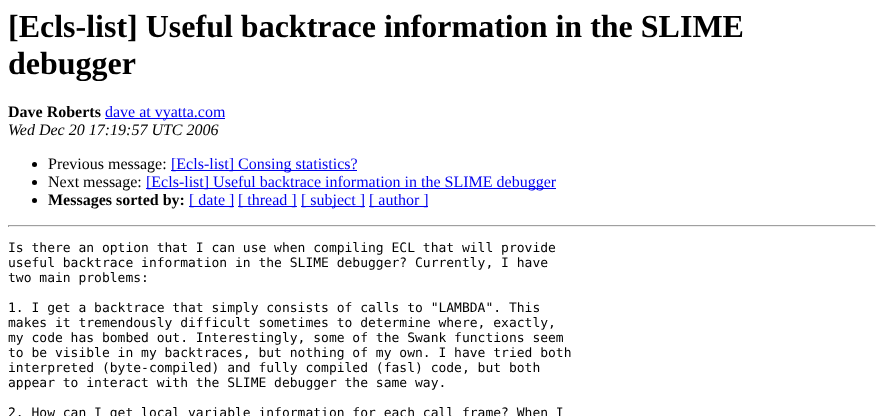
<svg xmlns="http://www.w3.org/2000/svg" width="884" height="416">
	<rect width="100%" height="100%" fill="#FFFFFF" />
	<g font-family="Liberation Serif" font-size="32" font-weight="700" fill="#000000">
		<text x="8" y="37">[Ecls-list] Useful backtrace information in the SLIME</text>
		<text x="8" y="74">debugger</text>
	</g>
	<text x="8" y="117" font-family="Liberation Serif" font-size="16" font-weight="700" fill="#000000">Dave Roberts</text>
	<rect x="105" y="118" width="120" height="1" fill="#0000EE" />
	<text x="105" y="117" font-family="Liberation Serif" font-size="16" fill="#0000EE">dave at vyatta.com</text>
	<text x="8" y="135" font-family="Liberation Serif" font-size="16" font-style="italic" fill="#000000">Wed Dec 20 17:19:57 UTC 2006</text>
	<circle cx="34.5" cy="164.5" r="2.5" fill="#000000" />
	<text x="48" y="169" font-family="Liberation Serif" font-size="16" fill="#000000">Previous message:</text>
	<rect x="171" y="170" width="186" height="1" fill="#0000EE" />
	<text x="171" y="169" font-family="Liberation Serif" font-size="16" fill="#0000EE">[Ecls-list] Consing statistics?</text>
	<circle cx="34.5" cy="182.5" r="2.5" fill="#000000" />
	<text x="48" y="187" font-family="Liberation Serif" font-size="16" fill="#000000">Next message:</text>
	<rect x="146" y="188" width="410" height="1" fill="#0000EE" />
	<text x="146" y="187" font-family="Liberation Serif" font-size="16" fill="#0000EE">[Ecls-list] Useful backtrace information in the SLIME debugger</text>
	<circle cx="34.5" cy="200.5" r="2.5" fill="#000000" />
	<text x="48" y="205" font-family="Liberation Serif" font-size="16" font-weight="700" fill="#000000">Messages sorted by:</text>
	<rect x="189" y="206" width="45" height="1" fill="#0000EE" />
	<text x="189" y="205" font-family="Liberation Serif" font-size="16" fill="#0000EE">[ date ]</text>
	<rect x="238" y="206" width="59" height="1" fill="#0000EE" />
	<text x="238" y="205" font-family="Liberation Serif" font-size="16" fill="#0000EE">[ thread ]</text>
	<rect x="301" y="206" width="64" height="1" fill="#0000EE" />
	<text x="301" y="205" font-family="Liberation Serif" font-size="16" fill="#0000EE">[ subject ]</text>
	<rect x="369" y="206" width="59" height="1" fill="#0000EE" />
	<text x="369" y="205" font-family="Liberation Serif" font-size="16" fill="#0000EE">[ author ]</text>
	<rect x="8" y="225" width="868" height="1" fill="#9F9F9F" />
	<rect x="875" y="225" width="1" height="2" fill="#EEEEEE" />
	<rect x="8" y="226" width="868" height="1" fill="#EEEEEE" />
	<rect x="8" y="225" width="1" height="2" fill="#9F9F9F" />
	<g font-family="DejaVu Sans Mono" font-size="13" fill="#000000">
		<text x="8" y="252">Is there an option that I can use when compiling ECL that will provide</text>
		<text x="8" y="267">useful backtrace information in the SLIME debugger? Currently, I have</text>
		<text x="8" y="282">two main problems:</text>
		<text x="8" y="312">1. I get a backtrace that simply consists of calls to "LAMBDA". This</text>
		<text x="8" y="327">makes it tremendously difficult sometimes to determine where, exactly,</text>
		<text x="8" y="342">my code has bombed out. Interestingly, some of the Swank functions seem</text>
		<text x="8" y="357">to be visible in my backtraces, but nothing of my own. I have tried both</text>
		<text x="8" y="372">interpreted (byte-compiled) and fully compiled (fasl) code, but both</text>
		<text x="8" y="387">appear to interact with the SLIME debugger the same way.</text>
		<text x="8" y="417">2. How can I get local variable information for each call frame? When I</text>
	</g>
</svg>
